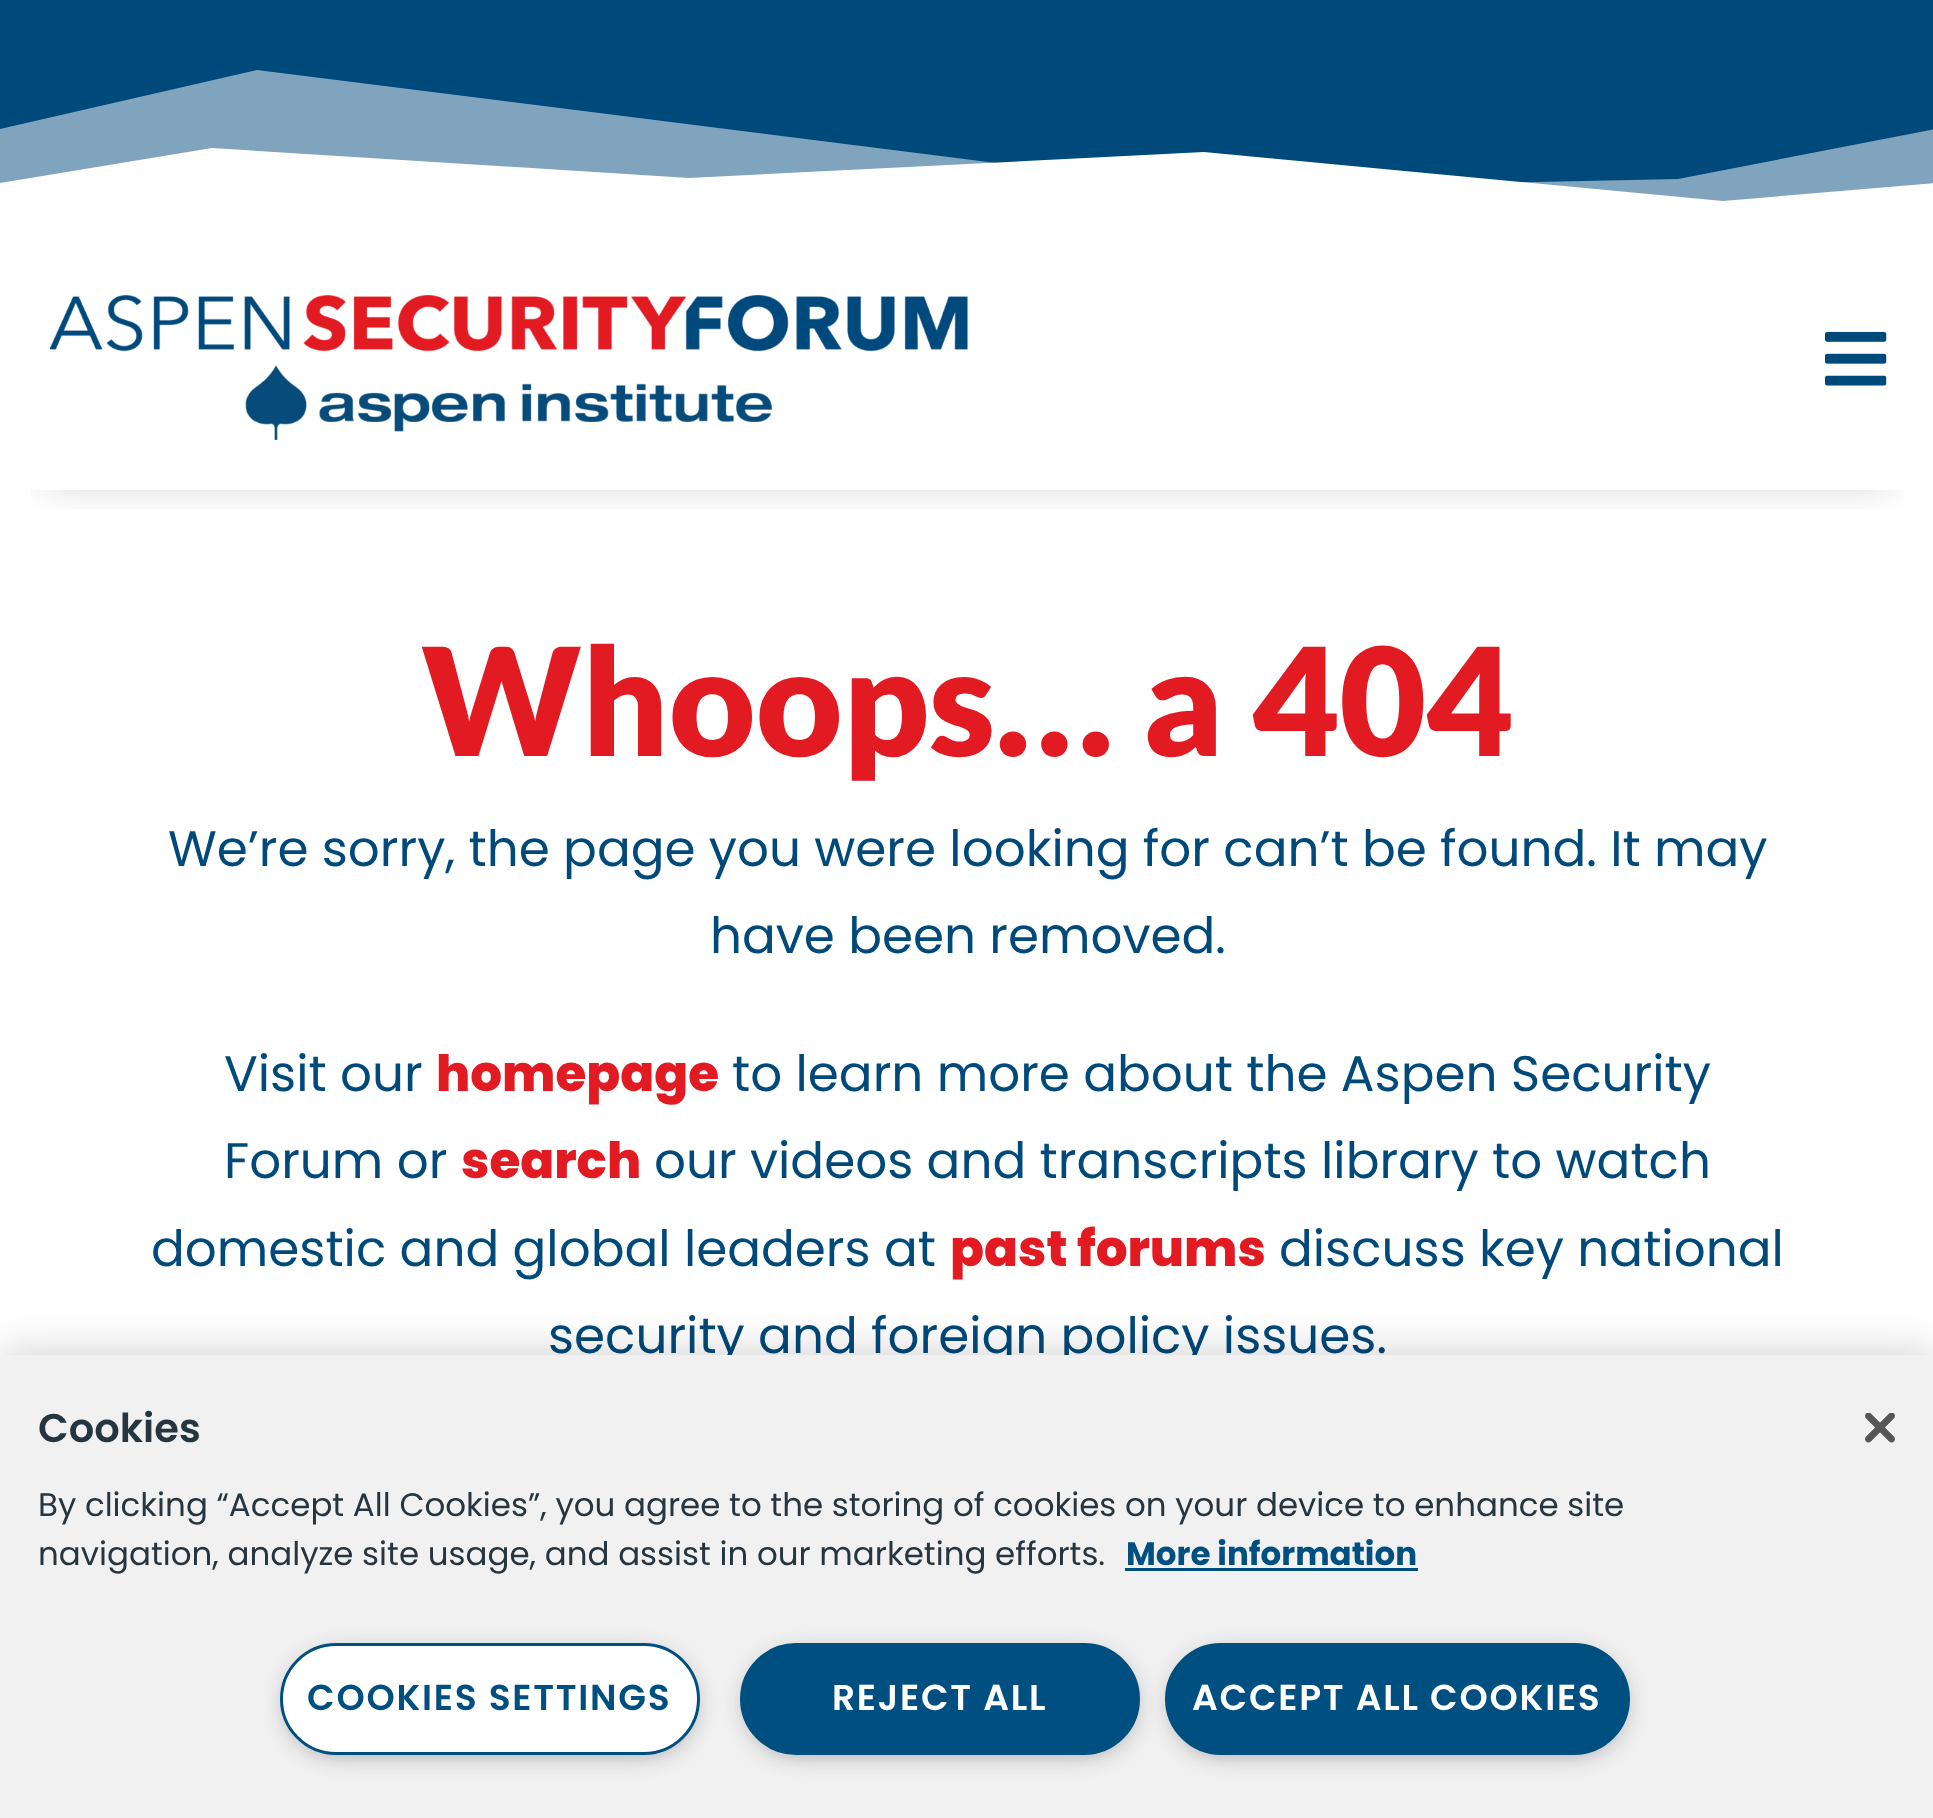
<svg xmlns="http://www.w3.org/2000/svg" width="1933" height="1818">
	<defs>
		<clipPath id="clip1"><rect x="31" y="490" width="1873" height="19" /></clipPath>
	</defs>
	<rect width="100%" height="100%" fill="#FFFFFF" />
	<rect x="0" y="0" width="1933" height="183" fill="#00497B" />
	<path d="M0 129L257 70L1204 189L1678 179L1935 129V245H0Z" fill="#80A4BD" />
	<path d="M0 183L212 148L689 178L1204 152L1723 201L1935 183V245H0Z" fill="#FFFFFF" />
	<g clip-path="url(#clip1)">
		<rect x="45" y="320" width="1845" height="155" fill="#000000" fill-opacity="0.3" filter="blur(22.5px)" />
	</g>
	<image x="50" y="295" width="918" height="145" href="assets/img1.png" />
	<image x="1825" y="331" width="62" height="55" href="assets/img2.png" />
	<text x="421" y="756" font-family="Lato" font-size="150" font-weight="900" fill="#E21A22">Whoops… a 404</text>
	<g font-family="Poppins" font-size="50" fill="#00497B">
		<text x="168" y="866">We’re sorry, the page you were looking for can’t be found. It may</text>
		<text x="710" y="953">have been removed.</text>
		<text x="224" y="1091">Visit our</text>
	</g>
	<text x="436" y="1091" font-family="Poppins" font-size="50" font-weight="800" fill="#E21A22">homepage</text>
	<g font-family="Poppins" font-size="50" fill="#00497B">
		<text x="732" y="1091">to learn more about the Aspen Security</text>
		<text x="224" y="1178">Forum or</text>
	</g>
	<text x="461" y="1178" font-family="Poppins" font-size="50" font-weight="800" fill="#E21A22">search</text>
	<g font-family="Poppins" font-size="50" fill="#00497B">
		<text x="654" y="1178">our videos and transcripts library to watch</text>
		<text x="151" y="1266">domestic and global leaders at</text>
	</g>
	<text x="950" y="1266" font-family="Poppins" font-size="50" font-weight="800" fill="#E21A22">past forums</text>
	<g font-family="Poppins" font-size="50" fill="#00497B">
		<text x="1279" y="1266">discuss key national</text>
		<text x="548" y="1353">security and foreign policy issues.</text>
	</g>
	<rect x="0" y="1355" width="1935" height="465" fill="#000000" fill-opacity="0.2" filter="blur(22.5px)" />
	<rect x="0" y="1355" width="1933" height="463" fill="#F1F1F1" />
	<text x="38" y="1442" font-family="Poppins" font-size="40" font-weight="600" fill="#263640">Cookies</text>
	<g font-family="Poppins" font-size="32.5" fill="#263640">
		<text x="38" y="1516">By clicking “Accept All Cookies”, you agree to the storing of cookies on your device to enhance site</text>
		<text x="38" y="1565">navigation, analyze site usage, and assist in our marketing efforts.</text>
	</g>
	<text x="1126" y="1565" font-family="Poppins" font-size="32.5" font-weight="700" fill="#004F81">More information</text>
	<rect x="1125" y="1568" width="293" height="3" fill="#004F81" />
	<rect x="288" y="1655" width="405" height="98" rx="49" fill="#999999" filter="blur(12.5px)" />
	<rect x="281.5" y="1644.5" width="417" height="109" rx="54.5" fill="#FFFFFF" stroke="#004F81" stroke-width="3" />
	<text x="307" y="1710" font-family="Poppins" font-size="36" font-weight="600" letter-spacing="1.75" fill="#004F81">COOKIES SETTINGS</text>
	<rect x="1173" y="1655" width="450" height="98" rx="49" fill="#999999" filter="blur(12.5px)" />
	<rect x="1166.5" y="1644.5" width="462" height="109" rx="54.5" fill="#004F81" stroke="#004F81" stroke-width="3" />
	<rect x="748" y="1655" width="385" height="98" rx="49" fill="#999999" filter="blur(12.5px)" />
	<rect x="741.5" y="1644.5" width="397" height="109" rx="54.5" fill="#004F81" stroke="#004F81" stroke-width="3" />
	<g font-family="Poppins" font-size="36" font-weight="600" letter-spacing="1.75" fill="#FFFFFF">
		<text x="832" y="1710">REJECT ALL</text>
		<text x="1192" y="1710">ACCEPT ALL COOKIES</text>
	</g>
	<image x="1865" y="1413" width="30" height="30" href="assets/img3.png" />
</svg>
